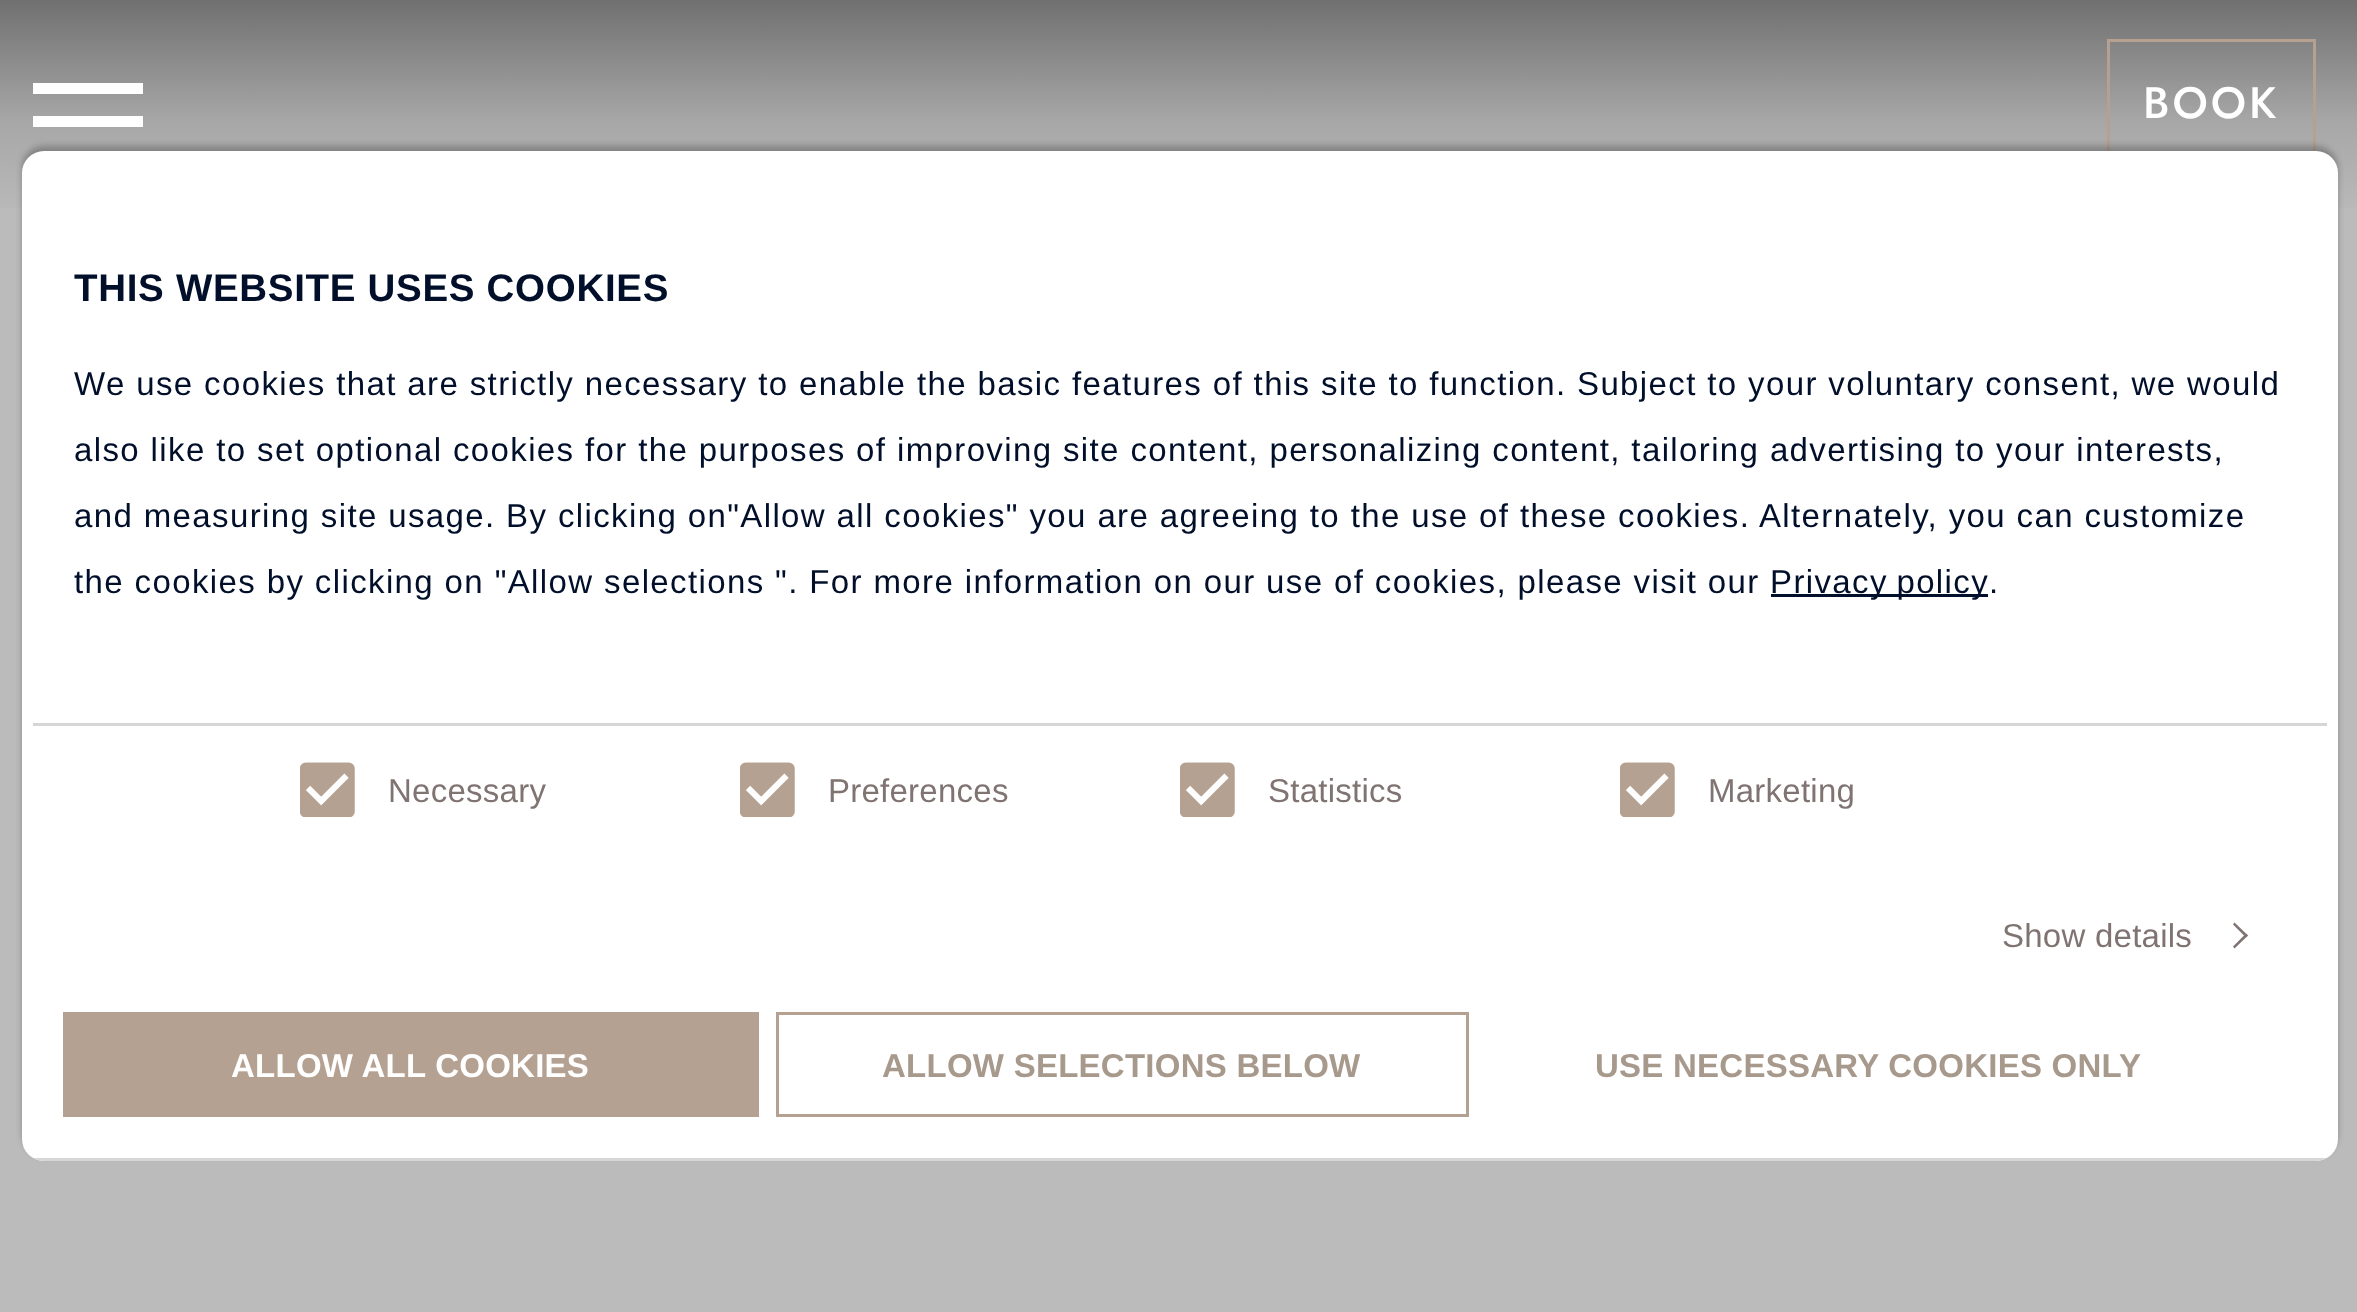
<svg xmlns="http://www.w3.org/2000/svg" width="2357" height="1312">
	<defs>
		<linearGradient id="g1" gradientUnits="userSpaceOnUse" x1="1180" y1="0" x2="1180" y2="220"><stop offset="0" stop-color="#707070" /><stop offset="0.55" stop-color="#A7A7A7" /><stop offset="1" stop-color="#BBBBBB" /></linearGradient>
		<clipPath id="clip1"><rect x="22" y="151" width="2316" height="1010" rx="22" /></clipPath>
	</defs>
	<rect width="100%" height="100%" fill="#BBBBBB" />
	<rect x="0" y="0" width="2357" height="208" fill="url(#g1)" />
	<rect x="33" y="83" width="110" height="11" fill="#FFFFFF" />
	<rect x="33" y="116" width="110" height="11" fill="#FFFFFF" />
	<rect x="2108.5" y="40.5" width="206" height="129" fill="none" stroke="#B5A191" stroke-width="3" />
	<text x="2143" y="118" font-family="Jost" font-size="44" font-weight="500" letter-spacing="3" fill="#FFFFFF">BOOK</text>
	<rect x="22" y="146" width="2316" height="1009" rx="22" fill="#000000" fill-opacity="0.25" filter="blur(3px)" />
	<rect x="22" y="151" width="2316" height="1010" rx="22" fill="#FFFFFF" />
	<rect x="33" y="723" width="2294" height="3" fill="#D6D6D6" />
	<text x="74" y="301" font-family="Liberation Sans" font-size="38.5" font-weight="700" letter-spacing="0.7" fill="#010F2A">THIS WEBSITE USES COOKIES</text>
	<g font-family="Liberation Sans" font-size="33" letter-spacing="1.38" fill="#010F2A">
		<text x="74" y="395">We use cookies that are strictly necessary to enable the basic features of this site to function. Subject to your voluntary consent, we would</text>
		<text x="74" y="461">also like to set optional cookies for the purposes of improving site content, personalizing content, tailoring advertising to your interests,</text>
		<text x="74" y="527">and measuring site usage. By clicking on"Allow all cookies" you are agreeing to the use of these cookies. Alternately, you can customize</text>
		<text x="74" y="593">the cookies by clicking on "Allow selections ". For more information on our use of cookies, please visit our</text>
	</g>
	<rect x="1771" y="594" width="217" height="3" fill="#010F2A" />
	<g font-family="Liberation Sans" font-size="33" letter-spacing="1.38" fill="#010F2A">
		<text x="1770" y="593" word-spacing="-2">Privacy policy</text>
		<text x="1989" y="593">.</text>
	</g>
	<image x="300" y="762" width="55" height="55" href="assets/img1.png" />
	<text x="388" y="802" font-family="Liberation Sans" font-size="33" letter-spacing="0.25" fill="#807472">Necessary</text>
	<image x="740" y="762" width="55" height="55" href="assets/img1.png" />
	<text x="828" y="802" font-family="Liberation Sans" font-size="33" letter-spacing="0.25" fill="#807472">Preferences</text>
	<image x="1180" y="762" width="55" height="55" href="assets/img1.png" />
	<text x="1268" y="802" font-family="Liberation Sans" font-size="33" letter-spacing="0.25" fill="#807472">Statistics</text>
	<image x="1620" y="762" width="55" height="55" href="assets/img1.png" />
	<g font-family="Liberation Sans" font-size="33" letter-spacing="0.25" fill="#807472">
		<text x="1708" y="802">Marketing</text>
		<text x="2002" y="947">Show details</text>
	</g>
	<path d="M2234.5 922.5L2248 935.5L2246 937.5L2233 924.5Z" fill="#807472" />
	<path d="M2246 933.5L2248 935.5L2234.5 948.5L2233 946.5Z" fill="#807472" />
	<g clip-path="url(#clip1)">
		<rect x="33" y="1158" width="2294" height="3" fill="#D6D6D6" />
	</g>
	<rect x="63" y="1012" width="696" height="105" fill="#B5A191" />
	<text x="231" y="1077" font-family="Liberation Sans" font-size="33" font-weight="700" letter-spacing="0.25" fill="#FFFFFF">ALLOW ALL COOKIES</text>
	<rect x="777.5" y="1013.5" width="690" height="102" fill="none" stroke="#B5A191" stroke-width="3" />
	<g font-family="Liberation Sans" font-size="33" font-weight="700" letter-spacing="0.25" fill="#A8998D">
		<text x="882" y="1077">ALLOW SELECTIONS BELOW</text>
		<text x="1595" y="1077">USE NECESSARY COOKIES ONLY</text>
	</g>
</svg>
